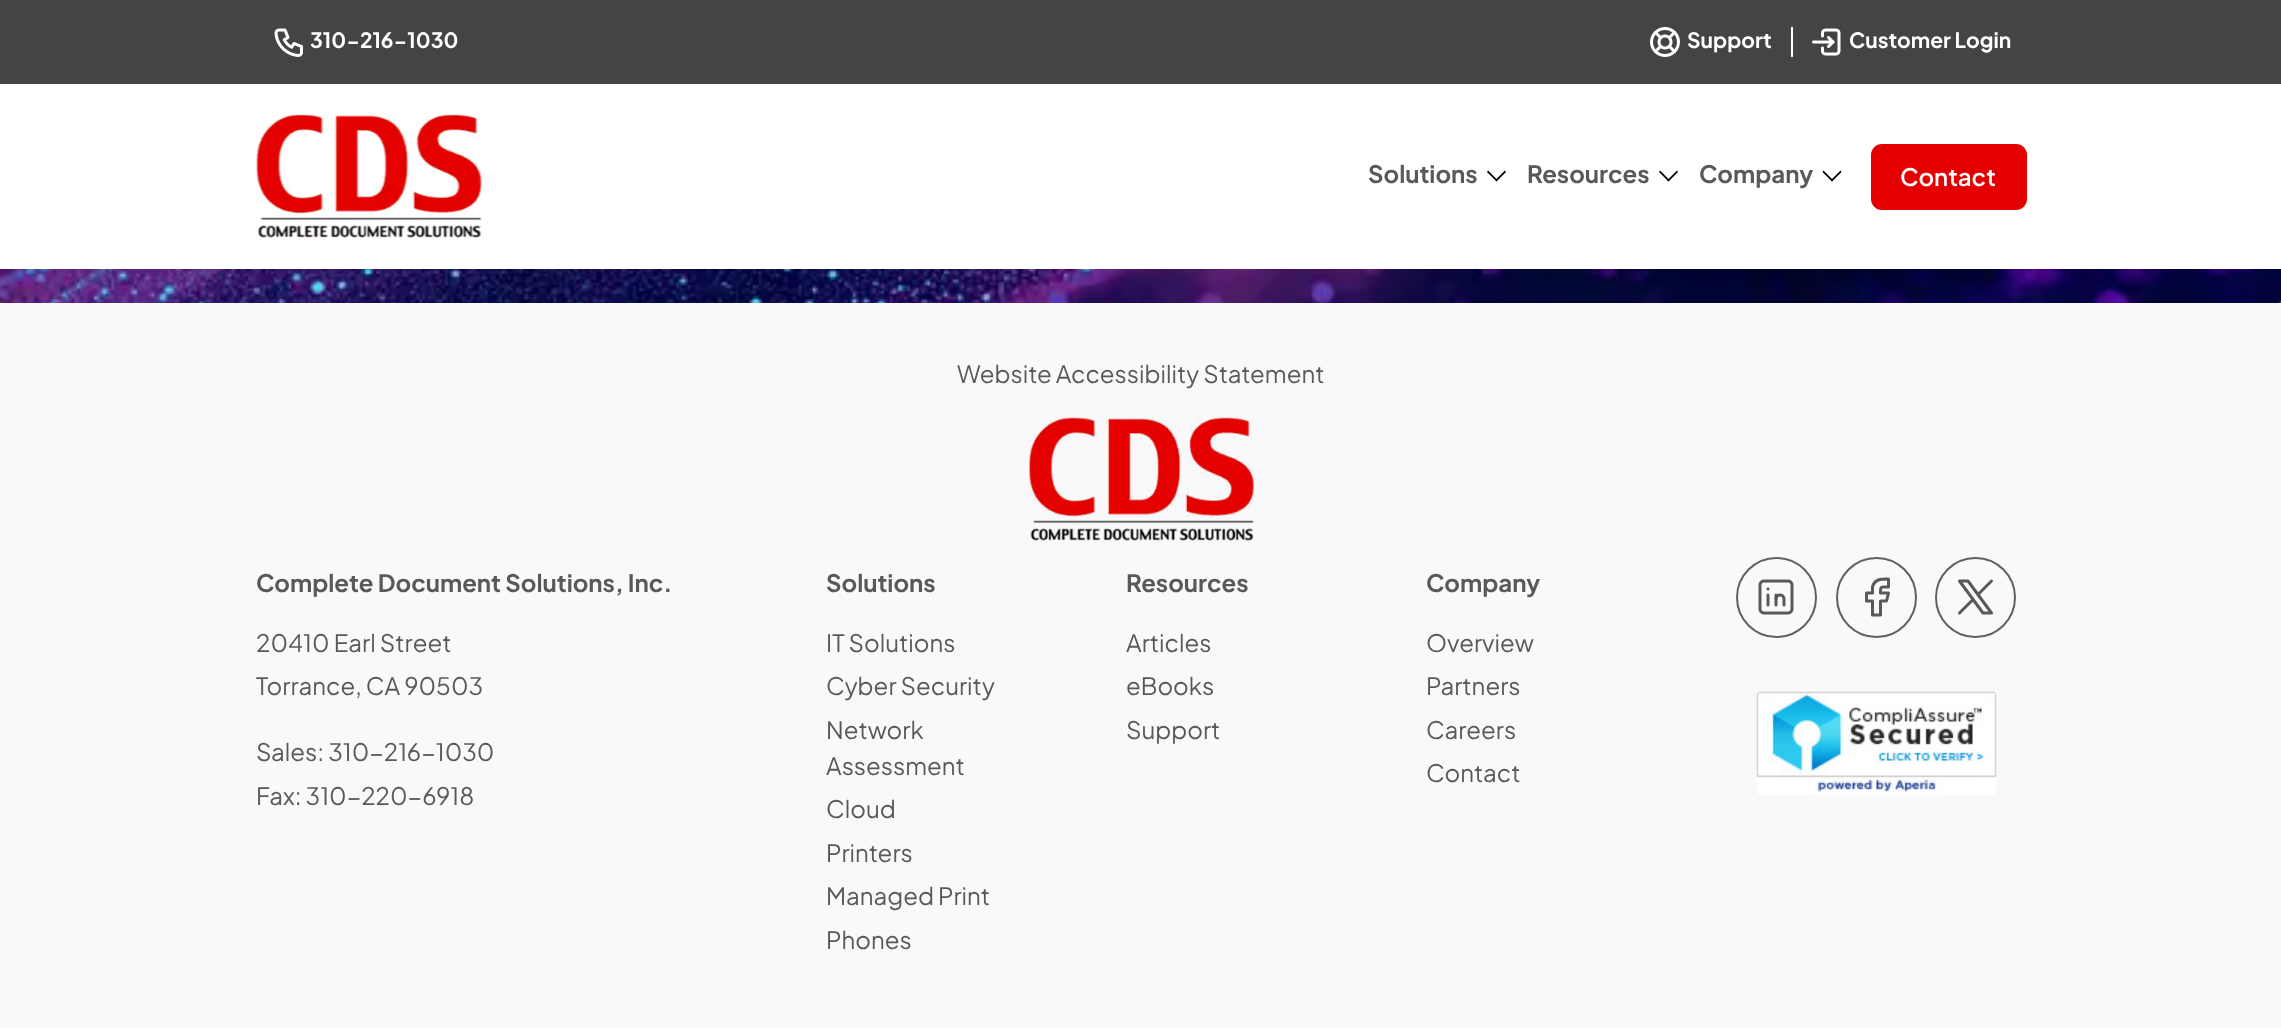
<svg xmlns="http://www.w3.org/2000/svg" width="2281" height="1028">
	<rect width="100%" height="100%" fill="#F9F9FB" />
	<rect x="0" y="299" width="2281" height="4" fill="#444444" />
	<image x="0" y="269" width="2281" height="34" href="assets/img5.png" />
	<rect x="0" y="0" width="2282" height="269" fill="#000000" fill-opacity="0.1" filter="blur(7.5px)" />
	<rect x="0" y="84" width="2281" height="185" fill="#FFFFFF" />
	<rect x="0" y="0" width="2281" height="84" fill="#444444" />
	<image x="274" y="28" width="29" height="29" href="assets/img1.png" />
	<text x="310" y="48" font-family="Plus Jakarta Sans" font-size="21" font-weight="700" fill="#FFFFFF">310-216-1030</text>
	<image x="1650" y="27" width="30" height="30" href="assets/img2.png" />
	<text x="1687" y="48" font-family="Plus Jakarta Sans" font-size="21" font-weight="700" fill="#FFFFFF">Support</text>
	<rect x="1791" y="27" width="2" height="30" fill="#FFFFFF" />
	<image x="1812" y="28" width="29" height="28" href="assets/img3.png" />
	<text x="1849" y="48" font-family="Plus Jakarta Sans" font-size="21" font-weight="700" fill="#FFFFFF">Customer Login</text>
	<image x="256" y="114" width="226" height="124" href="assets/img4.png" />
	<text x="1368" y="183" font-family="Plus Jakarta Sans" font-size="24" font-weight="700" fill="#595959">Solutions</text>
	<path d="M1505 170.5L1506 172L1496.5 181.5L1495.5 180Z" fill="#000000" />
	<path d="M1488 170.5L1497.5 180L1496.5 181.5L1487 172Z" fill="#000000" />
	<text x="1527" y="183" font-family="Plus Jakarta Sans" font-size="24" font-weight="700" fill="#595959">Resources</text>
	<path d="M1677 170.5L1678 172L1668.5 181.5L1667.5 180Z" fill="#000000" />
	<path d="M1660 170.5L1669.5 180L1668.5 181.5L1659 172Z" fill="#000000" />
	<text x="1699" y="183" font-family="Plus Jakarta Sans" font-size="24" font-weight="700" fill="#595959">Company</text>
	<path d="M1840.5 170.5L1841.5 172L1832 181.5L1831 180Z" fill="#000000" />
	<path d="M1823.5 170.5L1833 180L1832 181.5L1822.5 172Z" fill="#000000" />
	<rect x="1871" y="144" width="156" height="66" rx="11" fill="#E40000" />
	<text x="1900" y="186" font-family="Plus Jakarta Sans" font-size="24" font-weight="600" fill="#FFFFFF">Contact</text>
	<text x="957" y="383" font-family="Plus Jakarta Sans" font-size="24" fill="#595959">Website Accessibility Statement</text>
	<image x="1029" y="417" width="225" height="124" href="assets/img6.png" />
	<text x="256" y="592" font-family="Plus Jakarta Sans" font-size="24" font-weight="700" fill="#595959">Complete Document Solutions, Inc.</text>
	<g font-family="Plus Jakarta Sans" font-size="24" fill="#595959">
		<text x="256" y="652">20410 Earl Street</text>
		<text x="256" y="695">Torrance, CA 90503</text>
		<text x="256" y="761">Sales: 310-216-1030</text>
		<text x="256" y="805">Fax: 310-220-6918</text>
	</g>
	<text x="826" y="592" font-family="Plus Jakarta Sans" font-size="24" font-weight="700" fill="#595959">Solutions</text>
	<g font-family="Plus Jakarta Sans" font-size="24" fill="#595959">
		<text x="826" y="652">IT Solutions</text>
		<text x="826" y="695">Cyber Security</text>
		<text x="826" y="739">Network</text>
		<text x="826" y="775">Assessment</text>
		<text x="826" y="818">Cloud</text>
		<text x="826" y="862">Printers</text>
		<text x="826" y="905">Managed Print</text>
		<text x="826" y="949">Phones</text>
	</g>
	<text x="1126" y="592" font-family="Plus Jakarta Sans" font-size="24" font-weight="700" fill="#595959">Resources</text>
	<g font-family="Plus Jakarta Sans" font-size="24" fill="#595959">
		<text x="1126" y="652">Articles</text>
		<text x="1126" y="695">eBooks</text>
		<text x="1126" y="739">Support</text>
	</g>
	<text x="1426" y="592" font-family="Plus Jakarta Sans" font-size="24" font-weight="700" fill="#595959">Company</text>
	<g font-family="Plus Jakarta Sans" font-size="24" fill="#595959">
		<text x="1426" y="652">Overview</text>
		<text x="1426" y="695">Partners</text>
		<text x="1426" y="739">Careers</text>
		<text x="1426" y="782">Contact</text>
	</g>
	<circle cx="1776.5" cy="597.5" r="39.5" fill="none" stroke="#616161" stroke-width="2" />
	<image x="1758" y="579" width="36" height="36" href="assets/img7.png" />
	<circle cx="1876.5" cy="597.5" r="39.5" fill="none" stroke="#616161" stroke-width="2" />
	<path d="M1866.5 593V601H1872.5V615H1880.5V601H1886.5L1888.5 593H1880.5C1880.5 585.5 1881 587 1888.5 587V579C1882 579 1874.5 578.5 1872.5 587V593H1866.5" fill="none" stroke="#595959" stroke-width="3" stroke-linecap="round" stroke-linejoin="round" />
	<circle cx="1975.5" cy="597.5" r="39.5" fill="none" stroke="#616161" stroke-width="2" />
	<path d="M1959.5 581L1983 613H1991.5L1968 581ZM1959.5 613L1973 599.5M1978 594.5L1991.5 581" fill="none" stroke="#595959" stroke-width="3" stroke-linecap="round" stroke-linejoin="round" />
	<image x="1756" y="691" width="241" height="104" href="assets/img8.png" />
</svg>
